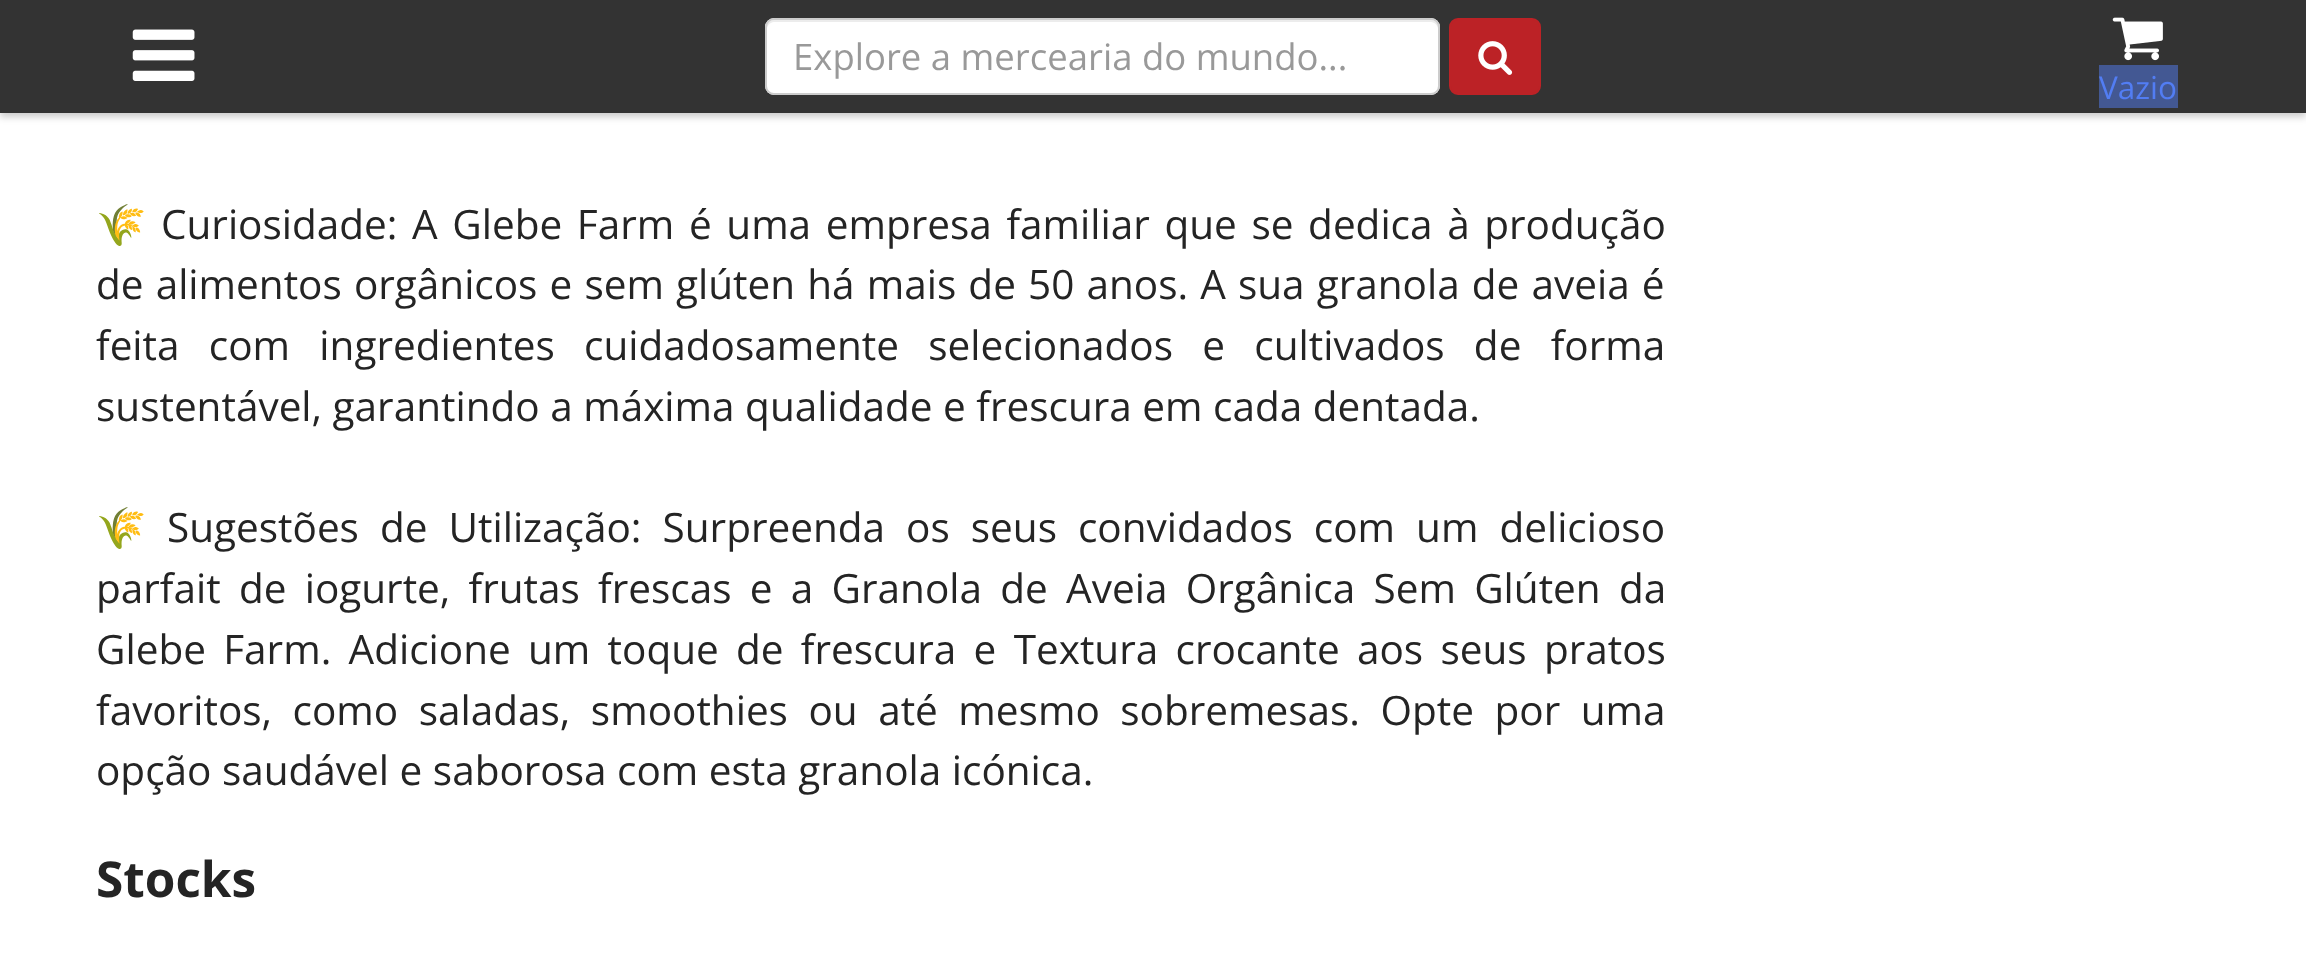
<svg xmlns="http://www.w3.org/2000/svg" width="2306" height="956">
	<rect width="100%" height="100%" fill="#FFFFFF" />
	<rect x="0" y="5" width="2306" height="112" fill="#000000" fill-opacity="0.2" filter="blur(3.5px)" />
	<rect x="0" y="0" width="2306" height="113" fill="#333333" />
	<image x="132" y="29" width="63" height="52" href="assets/img1.png" />
	<rect x="765" y="18" width="675" height="77" rx="9" fill="#FFFFFF" />
	<path d="M774 22H1431C1435 22 1438 26 1438 29V27C1438 23 1435 20 1431 20H774C770 20 767 23 767 27V29C767 26 770 22 774 22Z" fill="#ECECEC" />
	<rect x="766" y="19" width="673" height="75" rx="8" fill="none" stroke="#CCCCCC" stroke-width="2" />
	<text x="793" y="70" font-family="Open Sans" font-size="36.5" fill="#999999">Explore a mercearia do mundo...</text>
	<rect x="1450" y="19" width="90" height="75" rx="8" fill="#BC2226" stroke="#BC2226" stroke-width="2" />
	<image x="1478" y="41" width="35" height="34" href="assets/img2.png" />
	<image x="2112" y="17" width="51" height="44" href="assets/img3.png" />
	<rect x="2099" y="65" width="79" height="43" fill="#435893" />
	<text x="2099" y="99" font-family="Open Sans" font-size="31.5" fill="#527DF3">Vazio</text>
	<text x="96" y="239" font-family="Noto Color Emoji" font-size="40.5" fill="#242424">🌾</text>
	<g font-family="Open Sans" font-size="40.5" fill="#242424">
		<text x="161" y="239" word-spacing="4.1">Curiosidade: A Glebe Farm é uma empresa familiar que se dedica à produção</text>
		<text x="96" y="299" word-spacing="1.6">de alimentos orgânicos e sem glúten há mais de 50 anos. A sua granola de aveia é</text>
		<text x="96" y="360" word-spacing="18.75">feita com ingredientes cuidadosamente selecionados e cultivados de forma</text>
		<text x="96" y="421">sustentável, garantindo a máxima qualidade e frescura em cada dentada.</text>
	</g>
	<text x="96" y="542" font-family="Noto Color Emoji" font-size="40.5" fill="#242424">🌾</text>
	<g font-family="Open Sans" font-size="40.5" fill="#242424">
		<text x="167" y="542" word-spacing="10.5">Sugestões de Utilização: Surpreenda os seus convidados com um delicioso</text>
		<text x="96" y="603" word-spacing="7.75">parfait de iogurte, frutas frescas e a Granola de Aveia Orgânica Sem Glúten da</text>
		<text x="96" y="664" word-spacing="6.75">Glebe Farm. Adicione um toque de frescura e Textura crocante aos seus pratos</text>
		<text x="96" y="725" word-spacing="10">favoritos, como saladas, smoothies ou até mesmo sobremesas. Opte por uma</text>
		<text x="96" y="785">opção saudável e saborosa com esta granola icónica.</text>
	</g>
	<text x="96" y="897" font-family="Open Sans" font-size="49.5" font-weight="700" fill="#242424">Stocks</text>
</svg>
